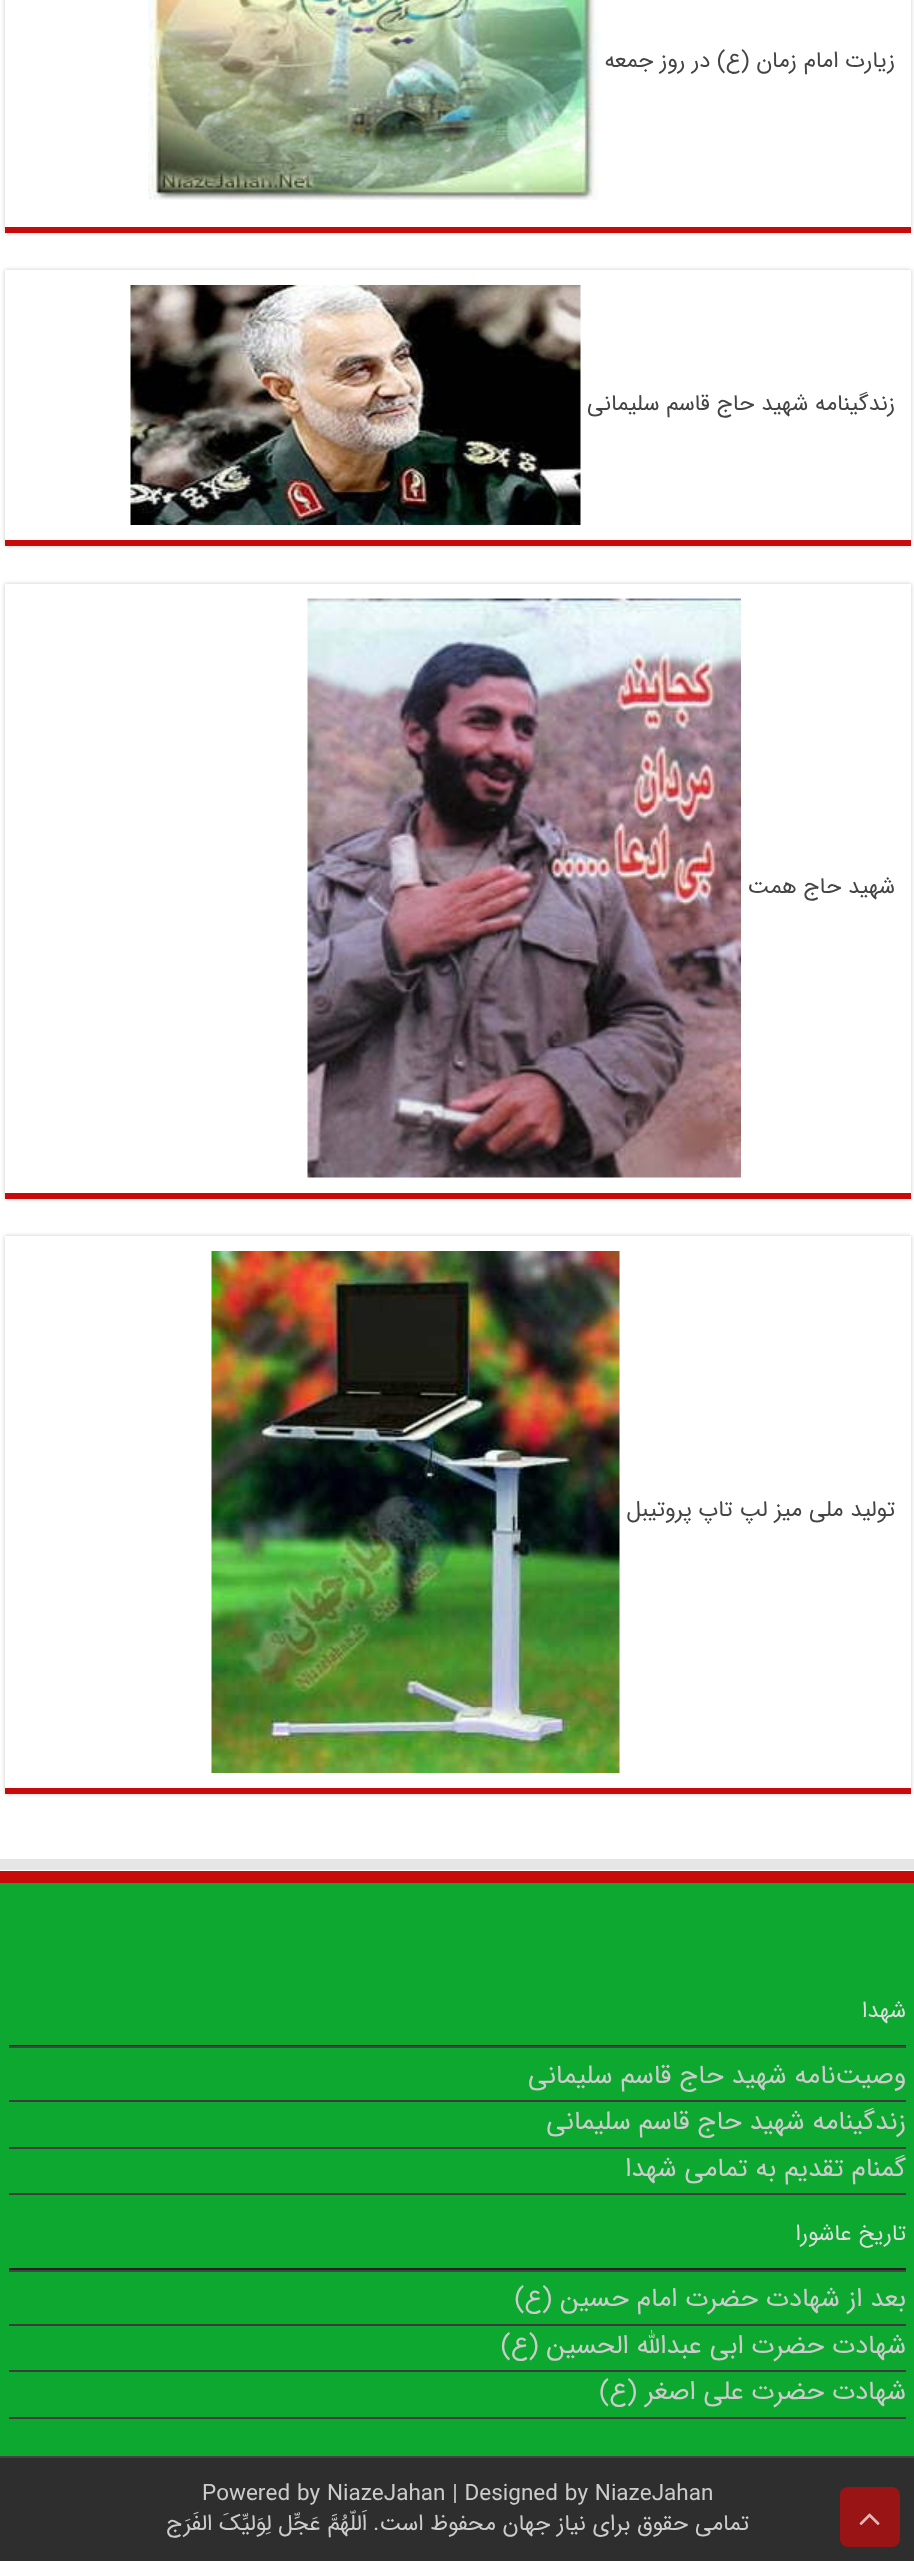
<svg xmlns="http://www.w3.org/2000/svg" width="914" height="2561">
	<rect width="100%" height="100%" fill="#FFFFFF" />
	<rect x="5" y="-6" width="906" height="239" fill="#CACACA" filter="blur(2px)" />
	<rect x="5" y="0" width="906" height="227" fill="#FFFFFF" />
	<rect x="5" y="227" width="906" height="6" fill="#C70A0A" />
	<text x="895" y="67" font-family="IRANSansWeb" font-size="22.5" direction="rtl" fill="#444444">زیارت امام زمان (ع) در روز جمعه</text>
	<image x="148" y="0" width="451" height="200" href="assets/img1.png" />
	<rect x="5" y="270" width="906" height="276" fill="#CACACA" filter="blur(2px)" />
	<rect x="5" y="270" width="906" height="270" fill="#FFFFFF" />
	<rect x="5" y="540" width="906" height="6" fill="#C70A0A" />
	<text x="895" y="410" font-family="IRANSansWeb" font-size="22.5" direction="rtl" fill="#444444">زندگینامه شهید حاج قاسم سلیمانی</text>
	<image x="130" y="285" width="451" height="240" href="assets/img2.png" />
	<rect x="5" y="584" width="906" height="615" fill="#CACACA" filter="blur(2px)" />
	<rect x="5" y="584" width="906" height="609" fill="#FFFFFF" />
	<rect x="5" y="1193" width="906" height="6" fill="#C70A0A" />
	<text x="895" y="893" font-family="IRANSansWeb" font-size="22.5" direction="rtl" fill="#444444">شهید حاج همت</text>
	<image x="307" y="598" width="434" height="580" href="assets/img3.png" />
	<rect x="5" y="1236" width="906" height="558" fill="#CACACA" filter="blur(2px)" />
	<rect x="5" y="1236" width="906" height="552" fill="#FFFFFF" />
	<rect x="5" y="1788" width="906" height="6" fill="#C70A0A" />
	<text x="895" y="1516" font-family="IRANSansWeb" font-size="22.5" direction="rtl" fill="#444444">تولید ملی میز لپ تاپ پروتیبل</text>
	<image x="211" y="1251" width="409" height="522" href="assets/img4.png" />
	<rect x="0" y="1859" width="914" height="11" fill="#E6E6E6" />
	<rect x="0" y="1883" width="914" height="573" fill="#0CA830" />
	<rect x="0" y="1871" width="914" height="12" fill="#C70A0A" />
	<rect x="9" y="2045" width="897" height="1" fill="#222222" />
	<text x="906" y="2017" font-family="IRANSansWeb" font-size="22.5" direction="rtl" fill="#DDDDDD">شهدا</text>
	<rect x="9" y="2046" width="897" height="2" fill="#444444" />
	<rect x="9" y="2100" width="897" height="2" fill="#3C3C3C" />
	<text x="906" y="2083" font-family="IRANSansWeb" font-size="26.3" direction="rtl" fill="#CCCCCC">وصیت‌نامه شهید حاج قاسم سلیمانی</text>
	<rect x="9" y="2147" width="897" height="2" fill="#3C3C3C" />
	<text x="906" y="2129" font-family="IRANSansWeb" font-size="26.3" direction="rtl" fill="#CCCCCC">زندگینامه شهید حاج قاسم سلیمانی</text>
	<rect x="9" y="2193" width="897" height="2" fill="#3C3C3C" />
	<text x="906" y="2176" font-family="IRANSansWeb" font-size="26.3" direction="rtl" fill="#CCCCCC">گمنام تقدیم به تمامی شهدا</text>
	<rect x="9" y="2268" width="897" height="2" fill="#222222" />
	<text x="906" y="2240" font-family="IRANSansWeb" font-size="22.5" direction="rtl" fill="#DDDDDD">تاریخ عاشورا</text>
	<rect x="9" y="2270" width="897" height="2" fill="#444444" />
	<rect x="9" y="2324" width="897" height="2" fill="#3C3C3C" />
	<text x="906" y="2306" font-family="IRANSansWeb" font-size="26.3" direction="rtl" fill="#CCCCCC">بعد از شهادت حضرت امام حسین (ع)</text>
	<rect x="9" y="2370" width="897" height="2" fill="#3C3C3C" />
	<text x="906" y="2353" font-family="IRANSansWeb" font-size="26.3" direction="rtl" fill="#CCCCCC">شهادت حضرت ابی عبدالله الحسین (ع)</text>
	<rect x="9" y="2417" width="897" height="2" fill="#3C3C3C" />
	<text x="906" y="2399" font-family="IRANSansWeb" font-size="26.3" direction="rtl" fill="#CCCCCC">شهادت حضرت علی اصغر (ع)</text>
	<rect x="0" y="2458" width="914" height="103" fill="#2E2E2E" />
	<rect x="0" y="2456" width="914" height="2" fill="#444444" />
	<text x="202" y="2500" font-family="IRANSansWeb" font-size="22.5" fill="#CCCCCC">Powered by NiazeJahan | Designed by NiazeJahan</text>
	<g font-family="IRANSansWeb" font-size="22.5" direction="rtl" fill="#CCCCCC">
		<text x="749" y="2530">تمامی حقوق برای نیاز جهان محفوظ است.</text>
		<text x="367" y="2530">اَللّهُمَّ عَجِّل لِوَليِّکَ الفَرَج</text>
	</g>
	<rect x="840" y="2487" width="60" height="60" rx="8" fill="#991515" />
	<image x="859" y="2513" width="21" height="12" href="assets/img5.png" />
</svg>
